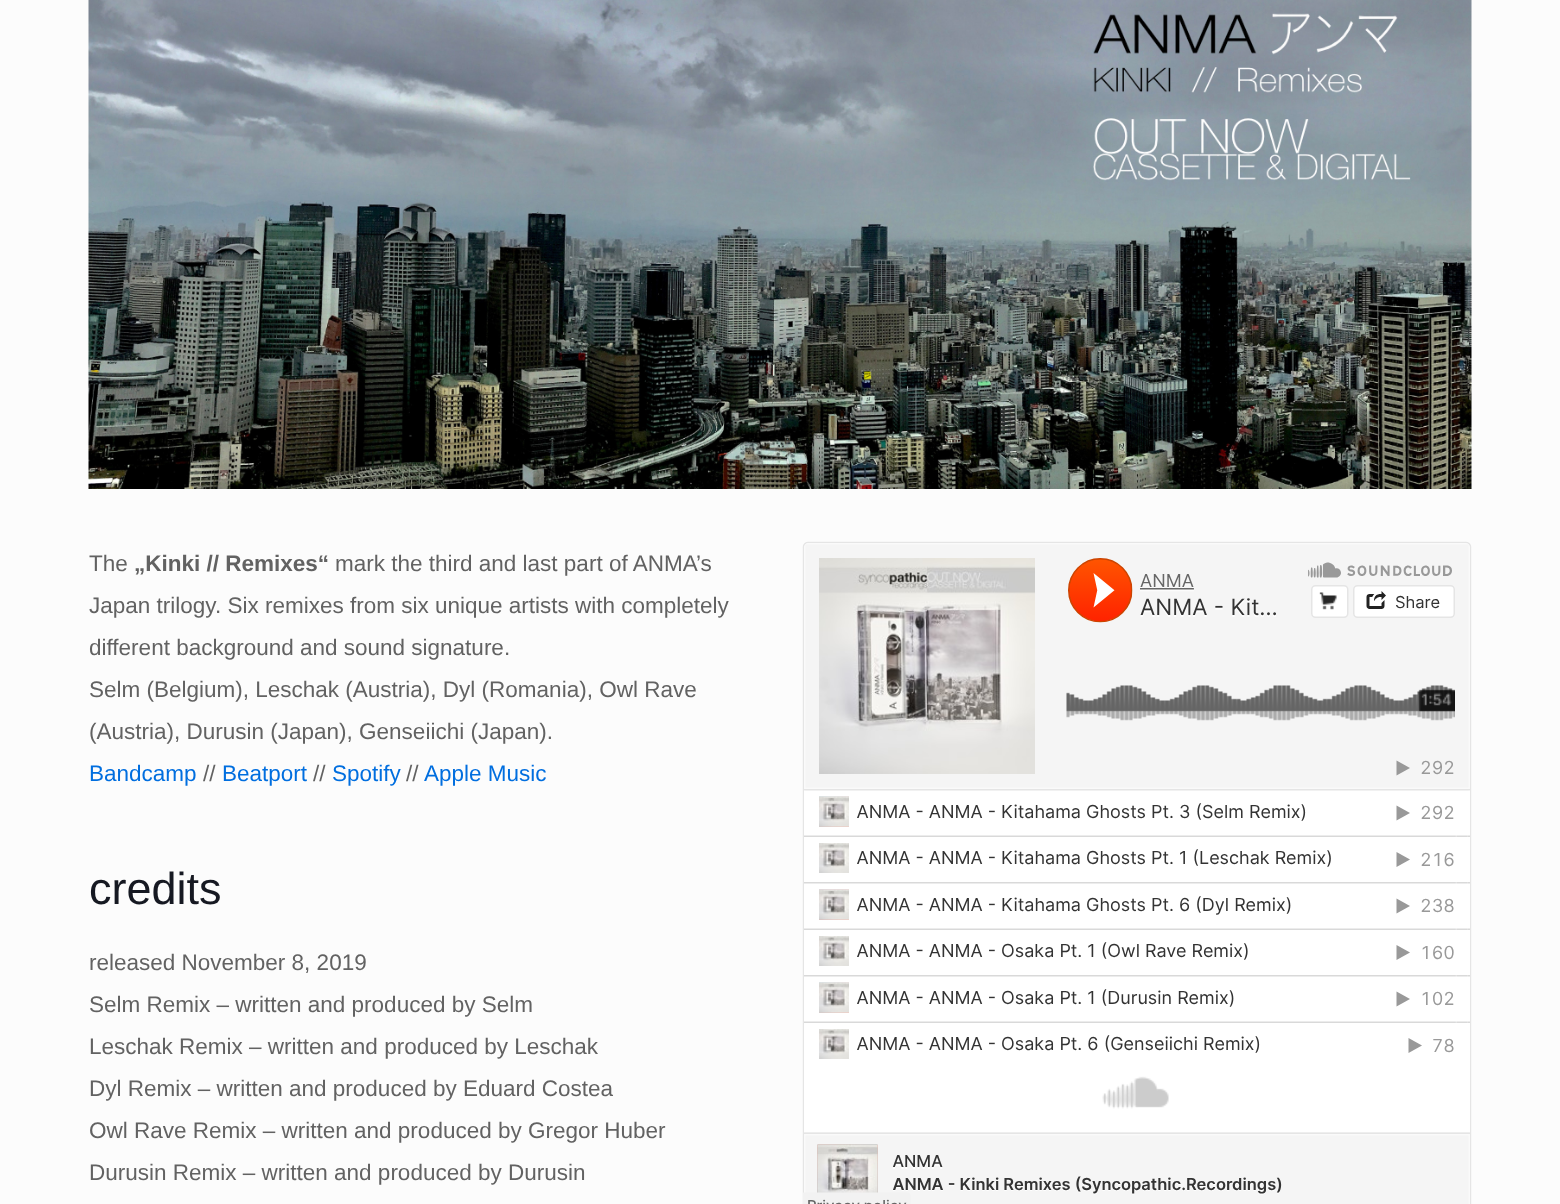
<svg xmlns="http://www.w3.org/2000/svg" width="1560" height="1204">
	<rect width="100%" height="100%" fill="#FCFCFC" />
	<image x="88" y="0" width="1384" height="489" href="assets/img1.png" />
	<text x="89" y="571" font-family="Liberation Sans" font-size="22.5" fill="#626262">The</text>
	<text x="134" y="571" font-family="Liberation Sans" font-size="22.5" font-weight="700" fill="#626262">„Kinki // Remixes“</text>
	<g font-family="Liberation Sans" font-size="22.5" fill="#626262">
		<text x="335" y="571">mark the third and last part of ANMA’s</text>
		<text x="89" y="613">Japan trilogy. Six remixes from six unique artists with completely</text>
		<text x="89" y="655">different background and sound signature.</text>
		<text x="89" y="697">Selm (Belgium), Leschak (Austria), Dyl (Romania), Owl Rave</text>
		<text x="89" y="739">(Austria), Durusin (Japan), Genseiichi (Japan).</text>
	</g>
	<text x="89" y="781" font-family="Liberation Sans" font-size="22.5" fill="#006EDF">Bandcamp</text>
	<text x="203" y="781" font-family="Liberation Sans" font-size="22.5" fill="#626262">//</text>
	<text x="222" y="781" font-family="Liberation Sans" font-size="22.5" fill="#006EDF">Beatport</text>
	<text x="313" y="781" font-family="Liberation Sans" font-size="22.5" fill="#626262">//</text>
	<text x="332" y="781" font-family="Liberation Sans" font-size="22.5" fill="#006EDF">Spotify</text>
	<text x="406" y="781" font-family="Liberation Sans" font-size="22.5" fill="#626262">//</text>
	<text x="424" y="781" font-family="Liberation Sans" font-size="22.5" fill="#006EDF">Apple Music</text>
	<text x="89" y="904" font-family="Liberation Sans" font-size="45" fill="#161922">credits</text>
	<g font-family="Liberation Sans" font-size="22.5" fill="#626262">
		<text x="89" y="970">released November 8, 2019</text>
		<text x="89" y="1012">Selm Remix – written and produced by Selm</text>
		<text x="89" y="1054">Leschak Remix – written and produced by Leschak</text>
		<text x="89" y="1096">Dyl Remix – written and produced by Eduard Costea</text>
		<text x="89" y="1138">Owl Rave Remix – written and produced by Gregor Huber</text>
		<text x="89" y="1180">Durusin Remix – written and produced by Durusin</text>
	</g>
	<image x="802" y="541" width="670" height="663" href="assets/img2.png" />
</svg>
